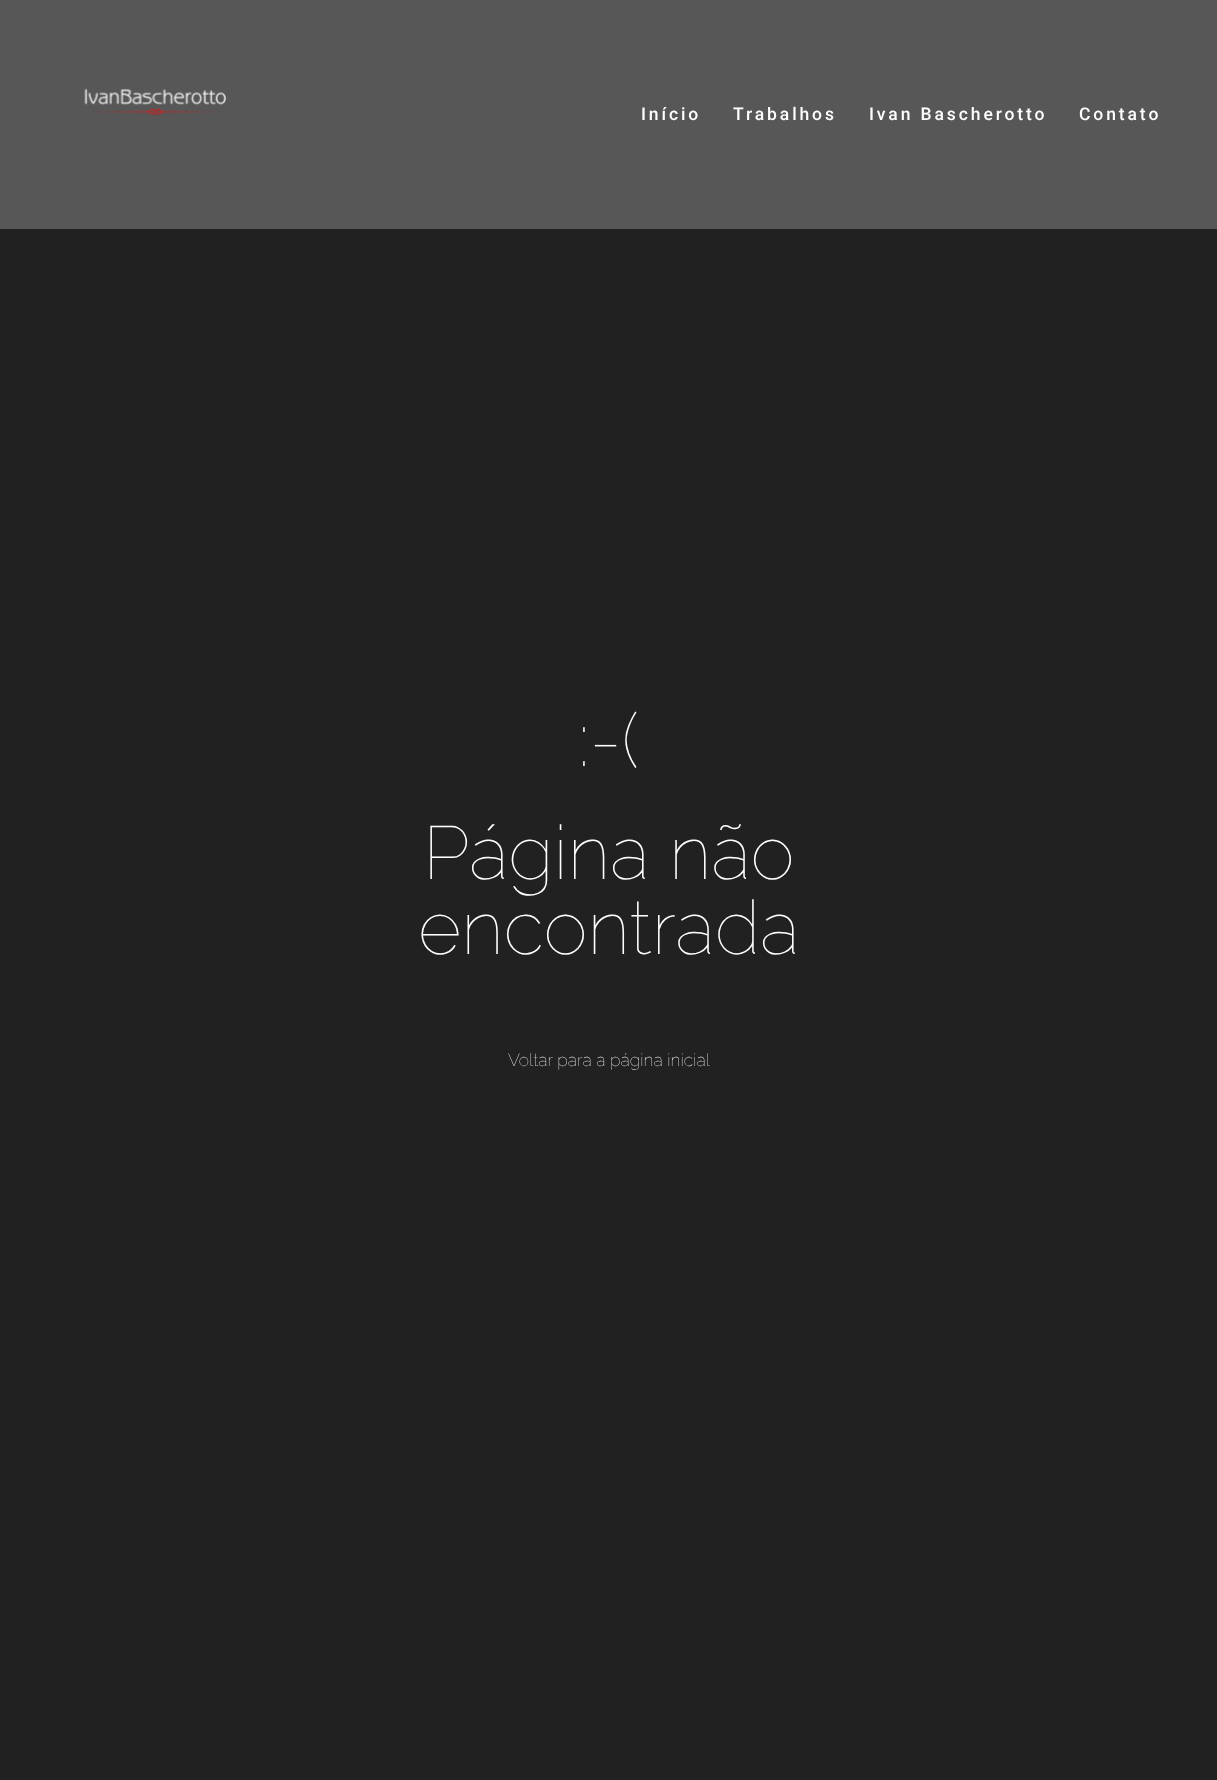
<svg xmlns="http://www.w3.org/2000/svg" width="1217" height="1780">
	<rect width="100%" height="100%" fill="#212121" />
	<rect x="0" y="0" width="1217" height="229" fill="#575757" />
	<image x="84" y="88" width="142" height="28" href="assets/img1.png" />
	<g font-family="Roboto" font-size="17.5" font-weight="500" letter-spacing="2.9" fill="#FFFFFF">
		<text x="641" y="120">Início</text>
		<text x="733" y="120">Trabalhos</text>
		<text x="869" y="120">Ivan Bascherotto</text>
		<text x="1079" y="120">Contato</text>
	</g>
	<g font-family="Raleway" font-size="75" font-weight="100" fill="#FFFFFF">
		<text x="578" y="766">:-(</text>
		<text x="423" y="879">Página não</text>
		<text x="418" y="954">encontrada</text>
	</g>
	<text x="508" y="1066" font-family="Raleway" font-size="17.5" font-weight="100" fill="#FFFFFF">Voltar para a página inicial</text>
</svg>
